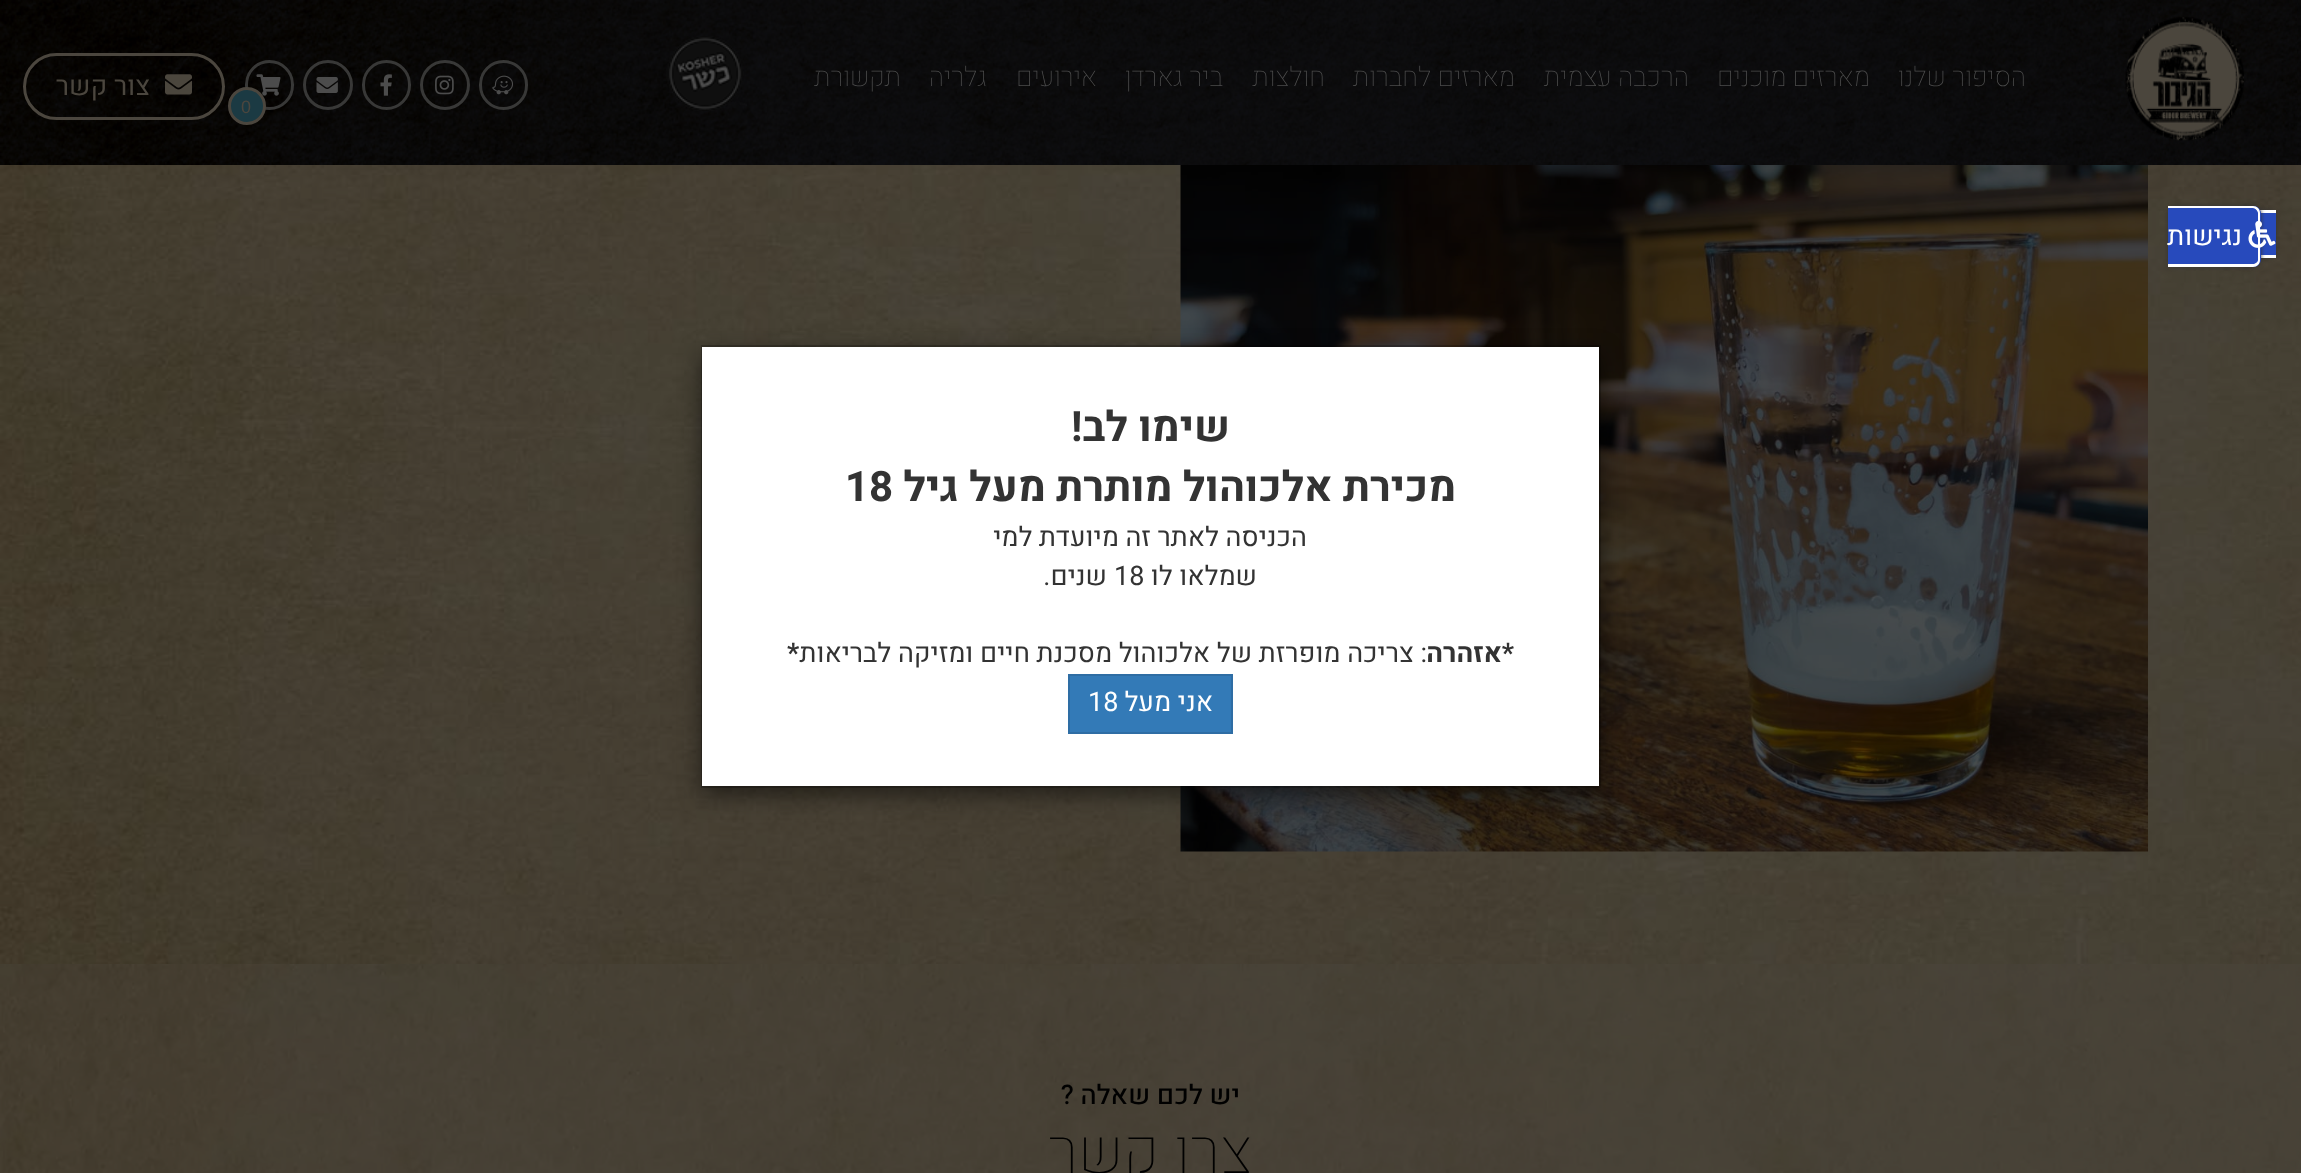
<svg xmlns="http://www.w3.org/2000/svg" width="2301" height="1173">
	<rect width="100%" height="100%" fill="#FFFFFF" />
	<image x="0" y="0" width="2301" height="165" href="assets/img1.png" />
	<image x="2125" y="17" width="119" height="124" href="assets/img2.png" />
	<g font-family="Heebo" font-size="27" font-weight="100" direction="rtl" fill="#4D4D4D">
		<text x="2026" y="86">הסיפור שלנו</text>
		<text x="1870" y="86">מארזים מוכנים</text>
		<text x="1689" y="86">הרכבה עצמית</text>
		<text x="1515" y="86">מארזים לחברות</text>
		<text x="1325" y="86">חולצות</text>
		<text x="1223" y="86">ביר גארדן</text>
		<text x="1097" y="86">אירועים</text>
		<text x="987" y="86">גלריה</text>
		<text x="901" y="86">תקשורת</text>
	</g>
	<image x="666" y="36" width="81" height="75" href="assets/img3.png" />
	<rect x="24.5" y="54.5" width="199" height="64" rx="32" fill="none" stroke="#4B463E" stroke-width="3" />
	<image x="165" y="74" width="27" height="21" href="assets/img4.png" />
	<text x="150" y="95" font-family="Heebo" font-size="27" direction="rtl" fill="#4B463E">צור קשר</text>
	<rect x="480.5" y="61.5" width="46" height="47" rx="23" fill="none" stroke="#383837" stroke-width="3" />
	<image x="492" y="75" width="22" height="20" href="assets/img5.png" />
	<circle cx="445" cy="85" r="23.5" fill="none" stroke="#383837" stroke-width="3" />
	<image x="435" y="75" width="19" height="20" href="assets/img6.png" />
	<rect x="363.5" y="61.5" width="46" height="47" rx="23" fill="none" stroke="#383837" stroke-width="3" />
	<image x="380" y="74" width="12" height="22" href="assets/img7.png" />
	<circle cx="328" cy="85" r="23.5" fill="none" stroke="#383837" stroke-width="3" />
	<image x="316" y="77" width="22" height="16" href="assets/img8.png" />
	<rect x="246.5" y="61.5" width="46" height="47" rx="23" fill="none" stroke="#383837" stroke-width="3" />
	<image x="256" y="74" width="25" height="22" href="assets/img9.png" />
	<circle cx="247" cy="106" r="17.5" fill="#1B3A43" stroke="#4B463E" stroke-width="3" />
	<text x="241" y="113" font-family="Liberation Sans" font-size="18" fill="#4B463E">0</text>
	<image x="0" y="165" width="2301" height="799" href="assets/img11.png" />
	<rect x="2231" y="210" width="45" height="48" rx="8" fill="#333333" filter="blur(2px)" />
	<rect x="2260" y="213" width="16" height="42" fill="#274ABC" />
	<path d="M2238 210H2276V258H2238C2234 258 2230 255 2230 250V218C2230 213 2234 210 2238 210ZM2238 213H2276V255H2238C2236 255 2234 253 2234 250V218C2234 215 2236 213 2238 213Z" fill="#FFFFFF" fill-rule="evenodd" />
	<rect x="2243" y="206" width="6" height="61" fill="#333333" filter="blur(2px)" />
	<rect x="2168" y="206" width="93" height="61" rx="8" fill="#333333" filter="blur(2px)" />
	<path d="M2168 206H2253C2257.5 206 2261 209.5 2261 214V259C2261 263.5 2257.5 267 2253 267H2168Z" fill="#274ABC" />
	<path d="M2168 206H2253C2257 206 2260 209 2260 213V260C2260 264 2257 267 2253 267H2168ZM2168 208H2253C2255 208 2258 211 2258 213V260C2258 262 2255 264 2253 264H2168Z" fill="#FFFFFF" fill-rule="evenodd" />
	<image x="2248" y="221" width="28" height="27" href="assets/img10.png" />
	<text x="2242" y="245" font-family="Heebo" font-size="27" direction="rtl" fill="#FFFFFF">נגישות</text>
	<image x="1180" y="165" width="968" height="687" href="assets/img12.png" />
	<rect x="701" y="353" width="900" height="442" fill="#000000" fill-opacity="0.5" filter="blur(11px)" />
	<rect x="702" y="346" width="898" height="441" fill="none" stroke="#000000" stroke-opacity="0.2" stroke-width="2" />
	<rect x="702" y="347" width="897" height="439" fill="#FFFFFF" />
	<g font-family="Heebo" font-size="42" font-weight="700" direction="rtl" fill="#333333">
		<text x="1230" y="441">שימו לב!</text>
		<text x="1456" y="501">מכירת אלכוהול מותרת מעל גיל</text>
	</g>
	<text x="845" y="501" font-family="Heebo" font-size="42" font-weight="700" fill="#333333">18</text>
	<g font-family="Heebo" font-size="27" direction="rtl" fill="#333333">
		<text x="1307" y="546">הכניסה לאתר זה מיועדת למי</text>
		<text x="1257" y="585">שמלאו לו</text>
	</g>
	<text x="1114" y="585" font-family="Heebo" font-size="27" fill="#333333">18</text>
	<text x="1107" y="585" font-family="Heebo" font-size="27" direction="rtl" fill="#333333">שנים.</text>
	<text x="1514" y="662" font-family="Heebo" font-size="27" font-weight="700" direction="rtl" fill="#333333">*אזהרה</text>
	<text x="1427" y="662" font-family="Heebo" font-size="27" direction="rtl" fill="#333333">: צריכה מופרזת של אלכוהול מסכנת חיים ומזיקה לבריאות</text>
	<text x="787" y="662" font-family="Heebo" font-size="27" font-weight="700" fill="#333333">*</text>
	<rect x="1069" y="675" width="163" height="58" fill="#337AB7" stroke="#2E6DA4" stroke-width="2" />
	<text x="1213" y="711" font-family="Heebo" font-size="27" direction="rtl" fill="#FFFFFF">אני מעל</text>
	<text x="1088" y="711" font-family="Heebo" font-size="27" fill="#FFFFFF">18</text>
	<image x="0" y="964" width="2301" height="209" href="assets/img13.png" />
	<text x="1240" y="1104" font-family="Heebo" font-size="27" font-weight="500" direction="rtl" fill="#000000">יש לכם שאלה ?</text>
	<text x="1252" y="1173" font-family="Heebo" font-size="63" font-weight="100" direction="rtl" fill="#000000">צרו קשר</text>
</svg>
